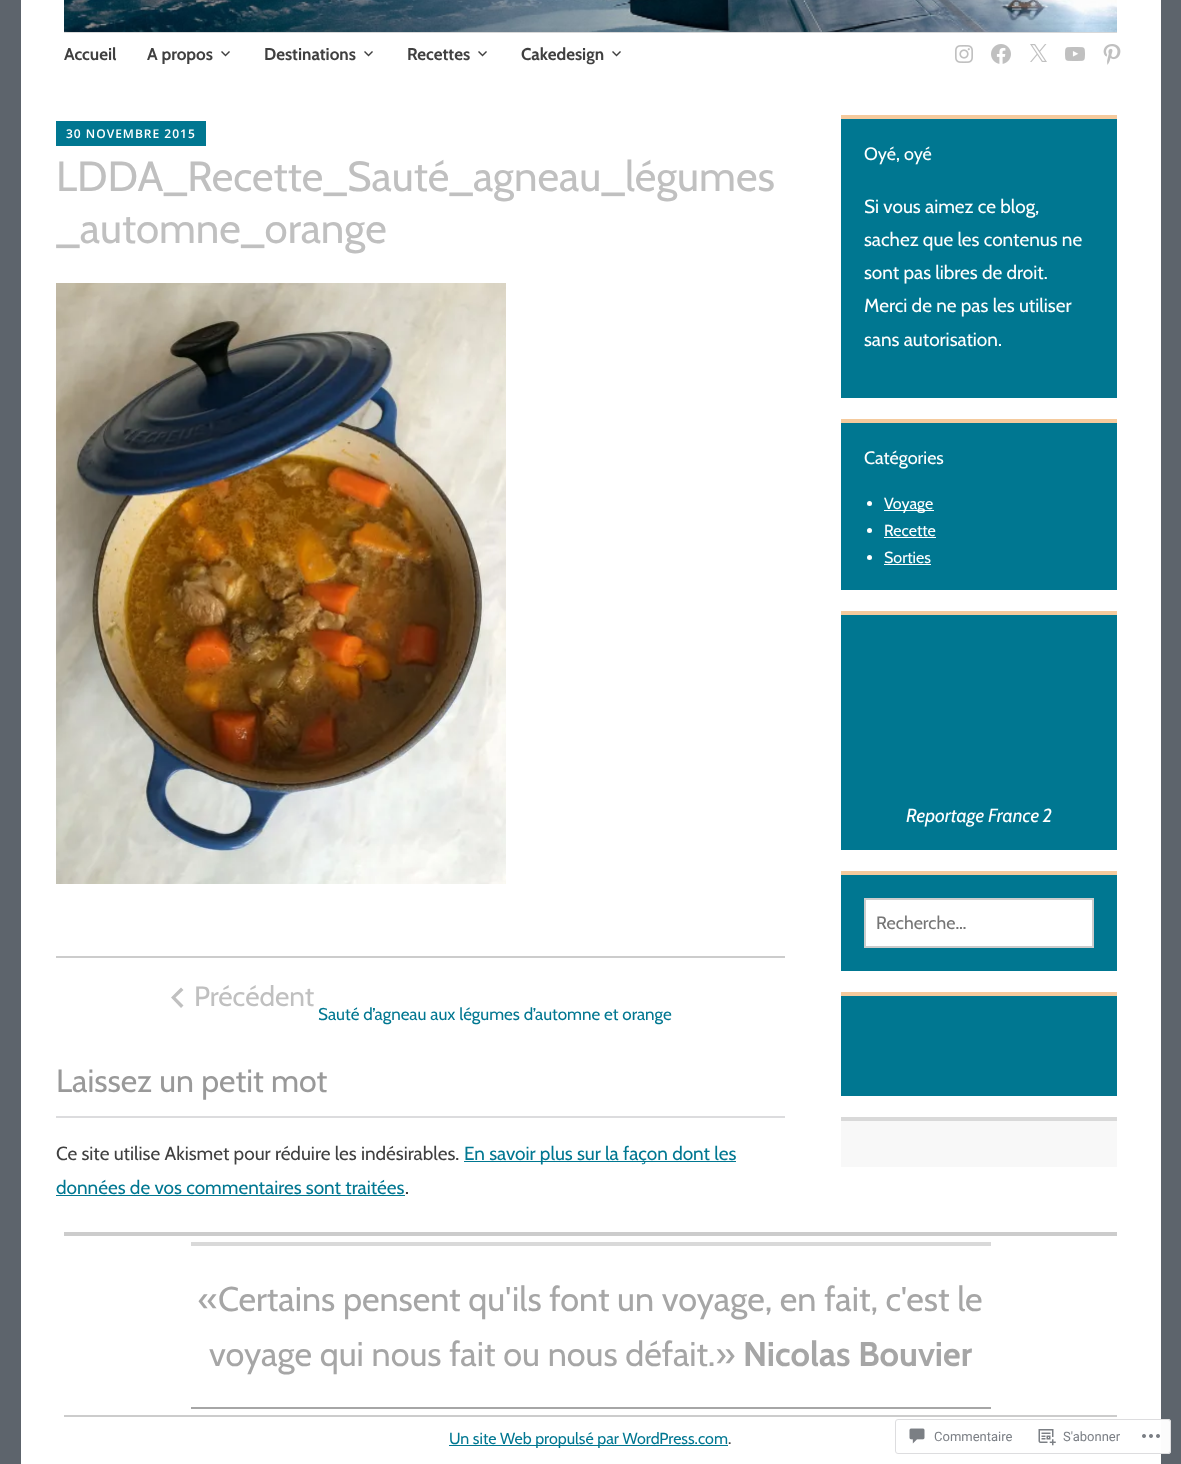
<svg xmlns="http://www.w3.org/2000/svg" width="1181" height="1464">
	<rect width="100%" height="100%" fill="#5D646C" />
	<rect x="21" y="0" width="1140" height="1464" fill="#FFFFFF" />
	<image x="64" y="0" width="1053" height="32" href="assets/img1.png" />
	<rect x="64" y="32" width="1053" height="1" fill="#D9D9D9" />
	<g font-family="Cabin" font-size="17" font-weight="700" fill="#404040">
		<text x="64" y="60">Accueil</text>
		<text x="147" y="60">A propos</text>
	</g>
	<image x="221" y="51" width="9" height="6" href="assets/img2.png" />
	<text x="264" y="60" font-family="Cabin" font-size="17" font-weight="700" fill="#404040">Destinations</text>
	<image x="364" y="51" width="9" height="6" href="assets/img2.png" />
	<text x="407" y="60" font-family="Cabin" font-size="17" font-weight="700" fill="#404040">Recettes</text>
	<image x="478" y="51" width="9" height="6" href="assets/img2.png" />
	<text x="521" y="60" font-family="Cabin" font-size="17" font-weight="700" fill="#404040">Cakedesign</text>
	<image x="612" y="51" width="9" height="6" href="assets/img2.png" />
	<image x="955" y="45" width="18" height="18" href="assets/img3.png" />
	<image x="991" y="44" width="20" height="20" href="assets/img4.png" />
	<image x="1030" y="44" width="17" height="18" href="assets/img5.png" />
	<image x="1065" y="47" width="20" height="14" href="assets/img6.png" />
	<image x="1103" y="44" width="18" height="21" href="assets/img7.png" />
	<rect x="56" y="121" width="150" height="25" fill="#007791" />
	<text x="66" y="138" font-family="Open Sans" font-size="12" font-weight="600" letter-spacing="1" fill="#FFFFFF">30 NOVEMBRE 2015</text>
	<g font-family="Cabin" font-size="42" fill="#C0C0C0">
		<text x="56" y="191">LDDA_Recette_Sauté_agneau_légumes</text>
		<text x="56" y="243">_automne_orange</text>
	</g>
	<image x="56" y="283" width="450" height="601" href="assets/img8.png" />
	<rect x="56" y="956" width="729" height="2" fill="#CCCCCC" />
	<path d="M183.5 990L175.5 997.5L183.5 1005.5L181 1008L171 997.5L181 987.5Z" fill="#C0C0C0" />
	<text x="194" y="1006" font-family="Cabin" font-size="28" fill="#C0C0C0">Précédent</text>
	<text x="318" y="1020" font-family="Cabin" font-size="17" fill="#007791">Sauté d’agneau aux légumes d’automne et orange</text>
	<text x="56" y="1092" font-family="Cabin" font-size="32" fill="#999999">Laissez un petit mot</text>
	<rect x="56" y="1116" width="729" height="2" fill="#DCDCDE" />
	<text x="56" y="1160" font-family="Cabin" font-size="19" fill="#404040">Ce site utilise Akismet pour réduire les indésirables.</text>
	<rect x="464" y="1161" width="272" height="1" fill="#007791" />
	<g font-family="Cabin" font-size="19" fill="#007791">
		<text x="464" y="1160">En savoir plus sur la façon dont les</text>
		<text x="56" y="1194">données de vos commentaires sont traitées</text>
	</g>
	<rect x="56" y="1195" width="349" height="1" fill="#007791" />
	<text x="405" y="1194" font-family="Cabin" font-size="19" fill="#404040">.</text>
	<rect x="841" y="119" width="276" height="279" fill="#007791" />
	<rect x="841" y="115" width="276" height="4" fill="#F5CA9D" />
	<text x="864" y="160" font-family="Cabin" font-size="18" fill="#FFFFFF">Oyé, oyé</text>
	<g font-family="Cabin" font-size="19" fill="#FFFFFF">
		<text x="864" y="213">Si vous aimez ce blog,</text>
		<text x="864" y="246">sachez que les contenus ne</text>
		<text x="864" y="279">sont pas libres de droit.</text>
		<text x="864" y="312">Merci de ne pas les utiliser</text>
		<text x="864" y="346">sans autorisation.</text>
	</g>
	<rect x="841" y="423" width="276" height="167" fill="#007791" />
	<rect x="841" y="419" width="276" height="4" fill="#F5CA9D" />
	<text x="864" y="464" font-family="Cabin" font-size="18" fill="#FFFFFF">Catégories</text>
	<circle cx="869.5" cy="503.5" r="2.5" fill="#FFFFFF" />
	<rect x="884" y="510" width="50" height="1" fill="#FFFFFF" />
	<text x="884" y="509" font-family="Cabin" font-size="16" fill="#FFFFFF">Voyage</text>
	<circle cx="869.5" cy="530.5" r="2.5" fill="#FFFFFF" />
	<text x="884" y="536" font-family="Cabin" font-size="16" fill="#FFFFFF">Recette</text>
	<rect x="884" y="537" width="52" height="1" fill="#FFFFFF" />
	<circle cx="869.5" cy="557.5" r="2.5" fill="#FFFFFF" />
	<text x="884" y="563" font-family="Cabin" font-size="16" fill="#FFFFFF">Sorties</text>
	<rect x="884" y="564" width="47" height="1" fill="#FFFFFF" />
	<rect x="841" y="615" width="276" height="235" fill="#007791" />
	<rect x="841" y="611" width="276" height="4" fill="#F5CA9D" />
	<text x="906" y="822" font-family="Cabin" font-size="19" font-style="italic" fill="#FFFFFF">Reportage France 2</text>
	<rect x="841" y="875" width="276" height="96" fill="#007791" />
	<rect x="841" y="871" width="276" height="4" fill="#F5CA9D" />
	<rect x="865" y="899" width="228" height="48" fill="#FFFFFF" stroke="#CCCCCC" stroke-width="2" />
	<text x="876" y="929" font-family="Cabin" font-size="18" fill="#757575">Recherche…</text>
	<rect x="841" y="996" width="276" height="100" fill="#007791" />
	<rect x="841" y="992" width="276" height="4" fill="#F5CA9D" />
	<rect x="841" y="1121" width="276" height="46" fill="#F8F8F8" />
	<rect x="841" y="1117" width="276" height="4" fill="#D9D9D9" />
	<rect x="64" y="1232" width="1053" height="4" fill="#CCCCCC" />
	<rect x="191" y="1242" width="800" height="4" fill="#D9D9D9" />
	<rect x="191" y="1407" width="800" height="2" fill="#A6A6A6" />
	<g font-family="Cabin" font-size="34.2" fill="#A6A6A6">
		<text x="198" y="1311">«Certains pensent qu'ils font un voyage, en fait, c'est le</text>
		<text x="209" y="1366">voyage qui nous fait ou nous défait.»</text>
	</g>
	<text x="743" y="1366" font-family="Cabin" font-size="34.2" font-weight="700" fill="#A6A6A6">Nicolas Bouvier</text>
	<rect x="64" y="1415" width="1053" height="2" fill="#CCCCCC" />
	<rect x="449" y="1445" width="279" height="1" fill="#007791" />
	<text x="449" y="1444" font-family="Cabin" font-size="16" fill="#007791">Un site Web propulsé par WordPress.com</text>
	<text x="728" y="1444" font-family="Cabin" font-size="16" fill="#404040">.</text>
	<rect x="895" y="1419" width="276" height="35" rx="3" fill="#FFFFFF" fill-opacity="0.98" />
	<rect x="895.5" y="1419.5" width="275" height="34" rx="2.5" fill="none" stroke="#DCDCDE" stroke-opacity="0.98" />
	<image x="909" y="1428" width="16" height="16" href="assets/img9.png" />
	<text x="934" y="1441" font-family="Roboto" font-size="13" fill="#7B7F85">Commentaire</text>
	<image x="1038" y="1429" width="18" height="17" href="assets/img10.png" />
	<text x="1063" y="1441" font-family="Roboto" font-size="13" fill="#7B7F85">S'abonner</text>
	<image x="1142" y="1434" width="18" height="4" href="assets/img11.png" />
</svg>
